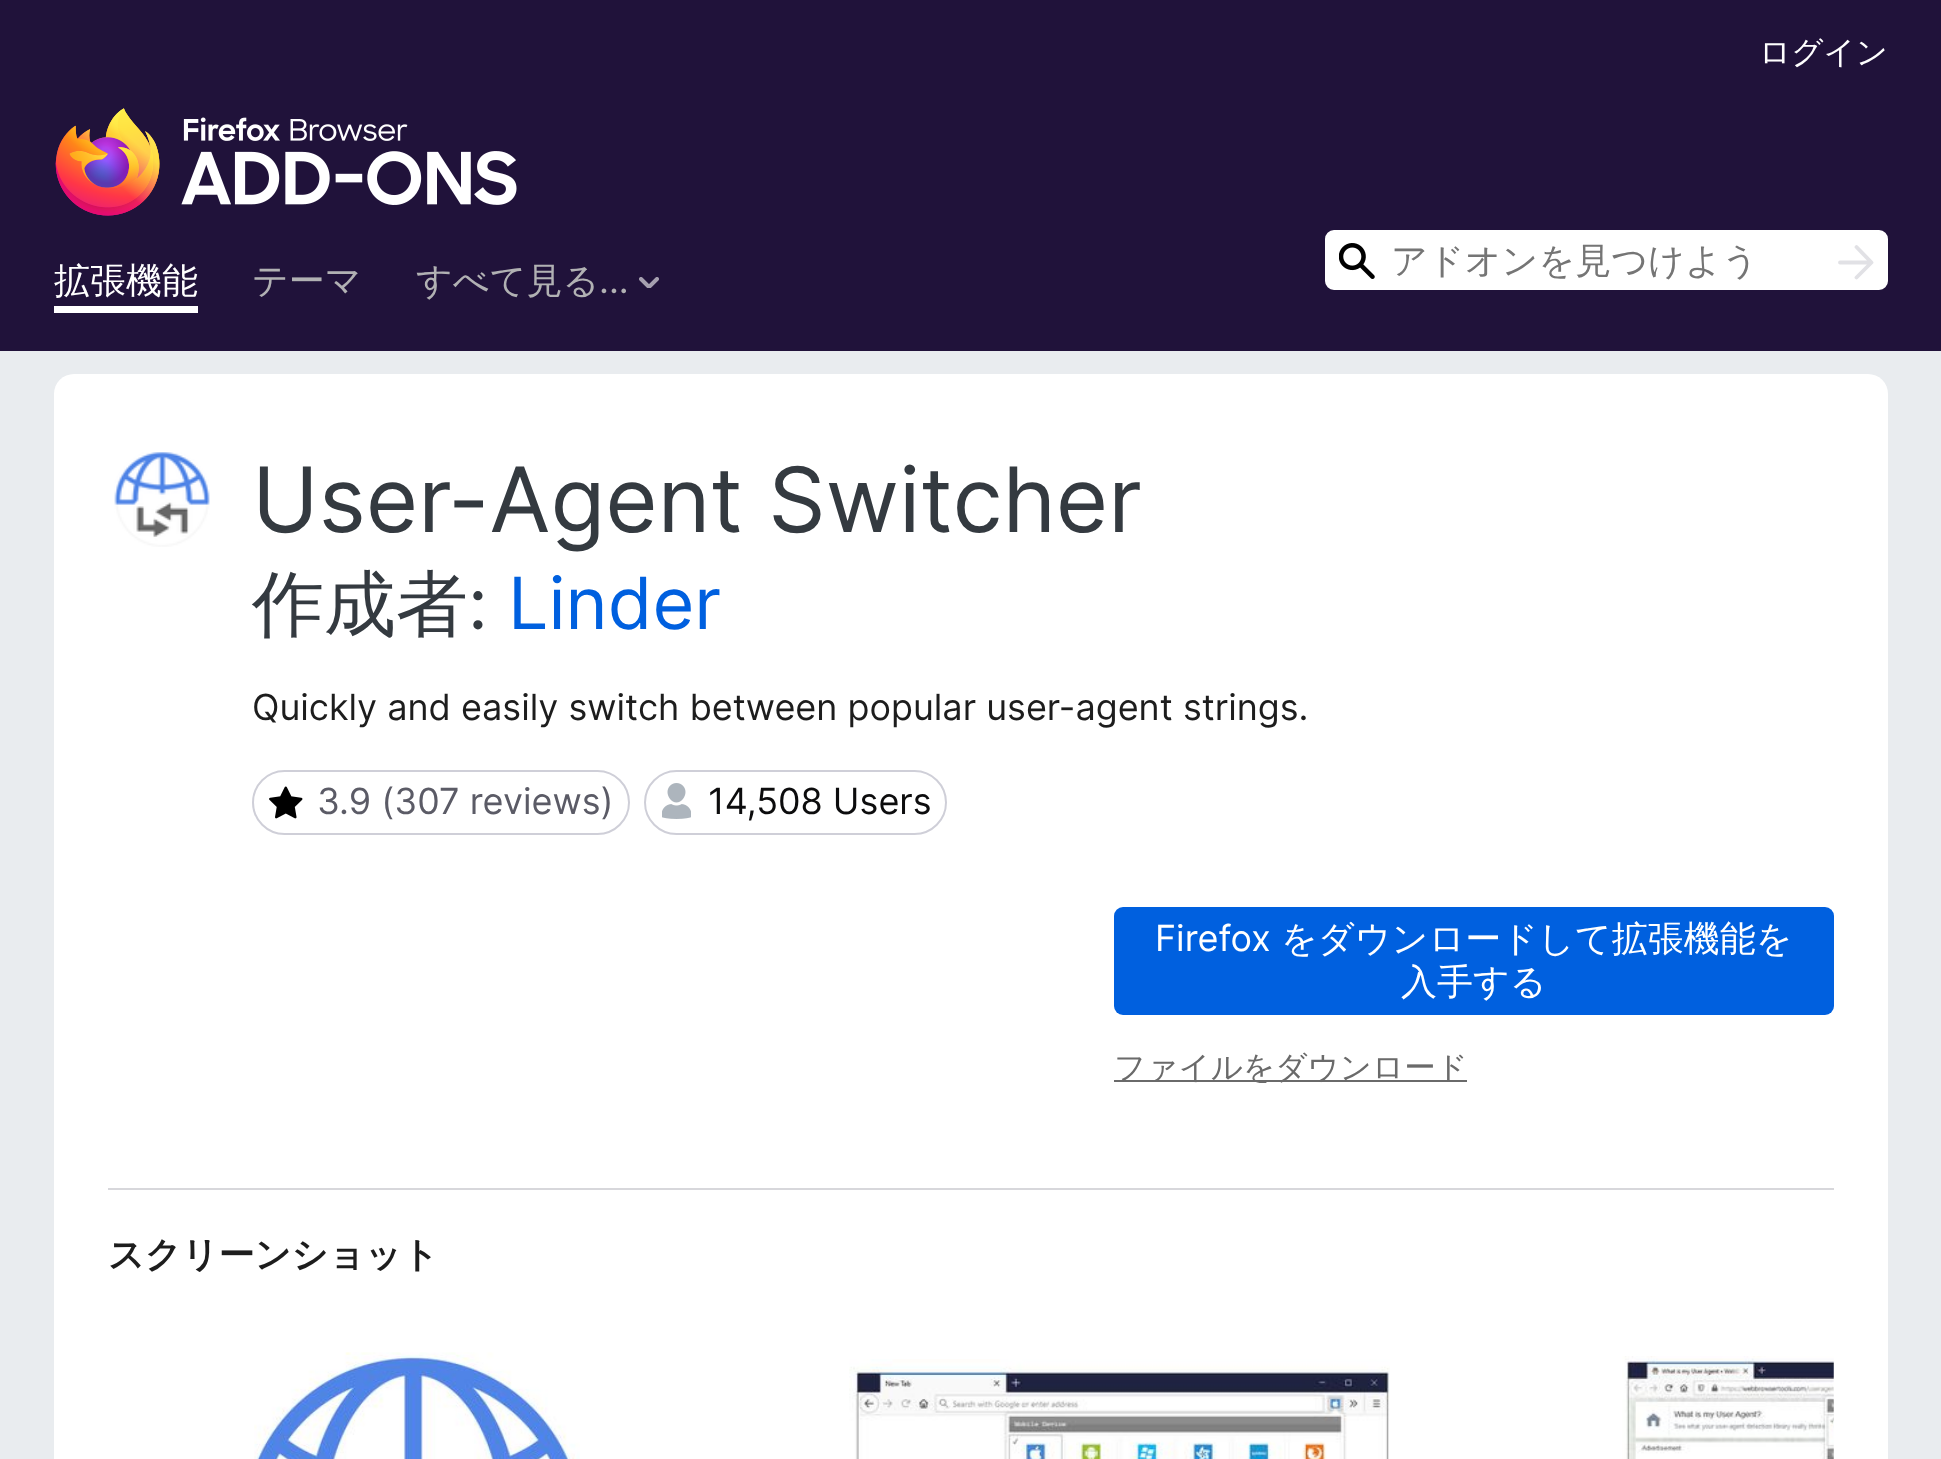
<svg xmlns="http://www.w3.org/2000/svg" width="1941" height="1459">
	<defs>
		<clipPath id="clip1"><rect x="639" y="277" width="20" height="11" /></clipPath>
	</defs>
	<rect width="100%" height="100%" fill="#20123A" />
	<text x="1759" y="63" font-family="WenQuanYi Zen Hei" font-size="31.5" font-weight="500" fill="#FFFFFF">ログイン</text>
	<image x="55" y="108" width="462" height="108" href="assets/img1.png" />
	<text x="54" y="293" font-family="WenQuanYi Zen Hei" font-size="36" font-weight="500" fill="#FFFFFF">拡張機能</text>
	<rect x="54" y="306" width="144" height="7" fill="#FFFFFF" />
	<g font-family="WenQuanYi Zen Hei" font-size="36" font-weight="500" fill="#B1B1B3">
		<text x="252" y="293">テーマ</text>
		<text x="416" y="293">すべて見る</text>
	</g>
	<text x="599" y="293" font-family="Inter" font-size="36" fill="#B1B1B3">...</text>
	<g clip-path="url(#clip1)">
		<path d="M657 279L649 287L641 279" fill="none" stroke="#A6A0B0" stroke-width="4" stroke-linecap="round" stroke-linejoin="round" />
	</g>
	<rect x="1326" y="231" width="561" height="58" rx="8" fill="#FFFFFF" stroke="#FFFFFF" stroke-width="2" />
	<image x="1339" y="243" width="36" height="36" href="assets/img2.png" />
	<text x="1391" y="273" font-family="WenQuanYi Zen Hei" font-size="36" font-weight="500" fill="#757575">アドオンを見つけよう</text>
	<path d="M1840 262.5H1870M1856.5 247L1871.5 262.5L1856.5 277.5" fill="none" stroke="#E1E1E5" stroke-width="3.8" stroke-linecap="round" stroke-linejoin="round" />
	<rect x="0" y="351" width="1941" height="1108" fill="#E9ECEF" />
	<rect x="54" y="374" width="1834" height="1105" rx="20" fill="#FFFFFF" />
	<image x="114" y="452" width="96" height="95" href="assets/img3.png" />
	<text x="252" y="532" font-family="Inter" font-size="90" fill="#343A40">User-Agent Switcher</text>
	<text x="252" y="629" font-family="WenQuanYi Zen Hei" font-size="72" font-weight="500" fill="#343A40">作成者</text>
	<text x="468" y="629" font-family="Inter" font-size="72" fill="#343A40">:</text>
	<text x="508" y="629" font-family="Inter" font-size="72" fill="#0060DF">Linder</text>
	<text x="252" y="720" font-family="Inter" font-size="36" fill="#1D1D1D">Quickly and easily switch between popular user-agent strings.</text>
	<rect x="253" y="771" width="376" height="63" rx="31.5" fill="none" stroke="#CFCFD8" stroke-width="2" />
	<image x="269" y="786" width="34" height="33" href="assets/img4.png" />
	<text x="317" y="814" font-family="Inter" font-size="36" fill="#5B5B66">3.9 (307 reviews)</text>
	<rect x="645" y="771" width="301" height="63" rx="31.5" fill="none" stroke="#CFCFD8" stroke-width="2" />
	<image x="662" y="783" width="29" height="36" href="assets/img5.png" />
	<text x="708" y="814" font-family="Inter" font-size="36" fill="#0C0C0D">14,508 Users</text>
	<rect x="1114" y="907" width="720" height="108" rx="9" fill="#0060DF" />
	<text x="1155" y="951" font-family="Inter" font-size="36" fill="#FFFFFF">Firefox</text>
	<g font-family="WenQuanYi Zen Hei" font-size="36" font-weight="500" fill="#FFFFFF">
		<text x="1281" y="951">をダウンロードして拡張機能を</text>
		<text x="1401" y="994">入手する</text>
	</g>
	<rect x="1114" y="1080" width="353" height="2" fill="#6A6A6A" />
	<text x="1114" y="1078" font-family="WenQuanYi Zen Hei" font-size="31.5" font-weight="500" fill="#6A6A6A">ファイルをダウンロード</text>
	<rect x="108" y="1188" width="1726" height="2" fill="#D7D7DB" />
	<text x="108" y="1267" font-family="WenQuanYi Zen Hei" font-size="36" font-weight="700" fill="#1D1D1D">スクリーンショット</text>
	<image x="254" y="1352" width="326" height="107" href="assets/img6.png" />
	<image x="849" y="1359" width="541" height="100" href="assets/img7.png" />
	<image x="1622" y="1356" width="212" height="103" href="assets/img8.png" />
</svg>
